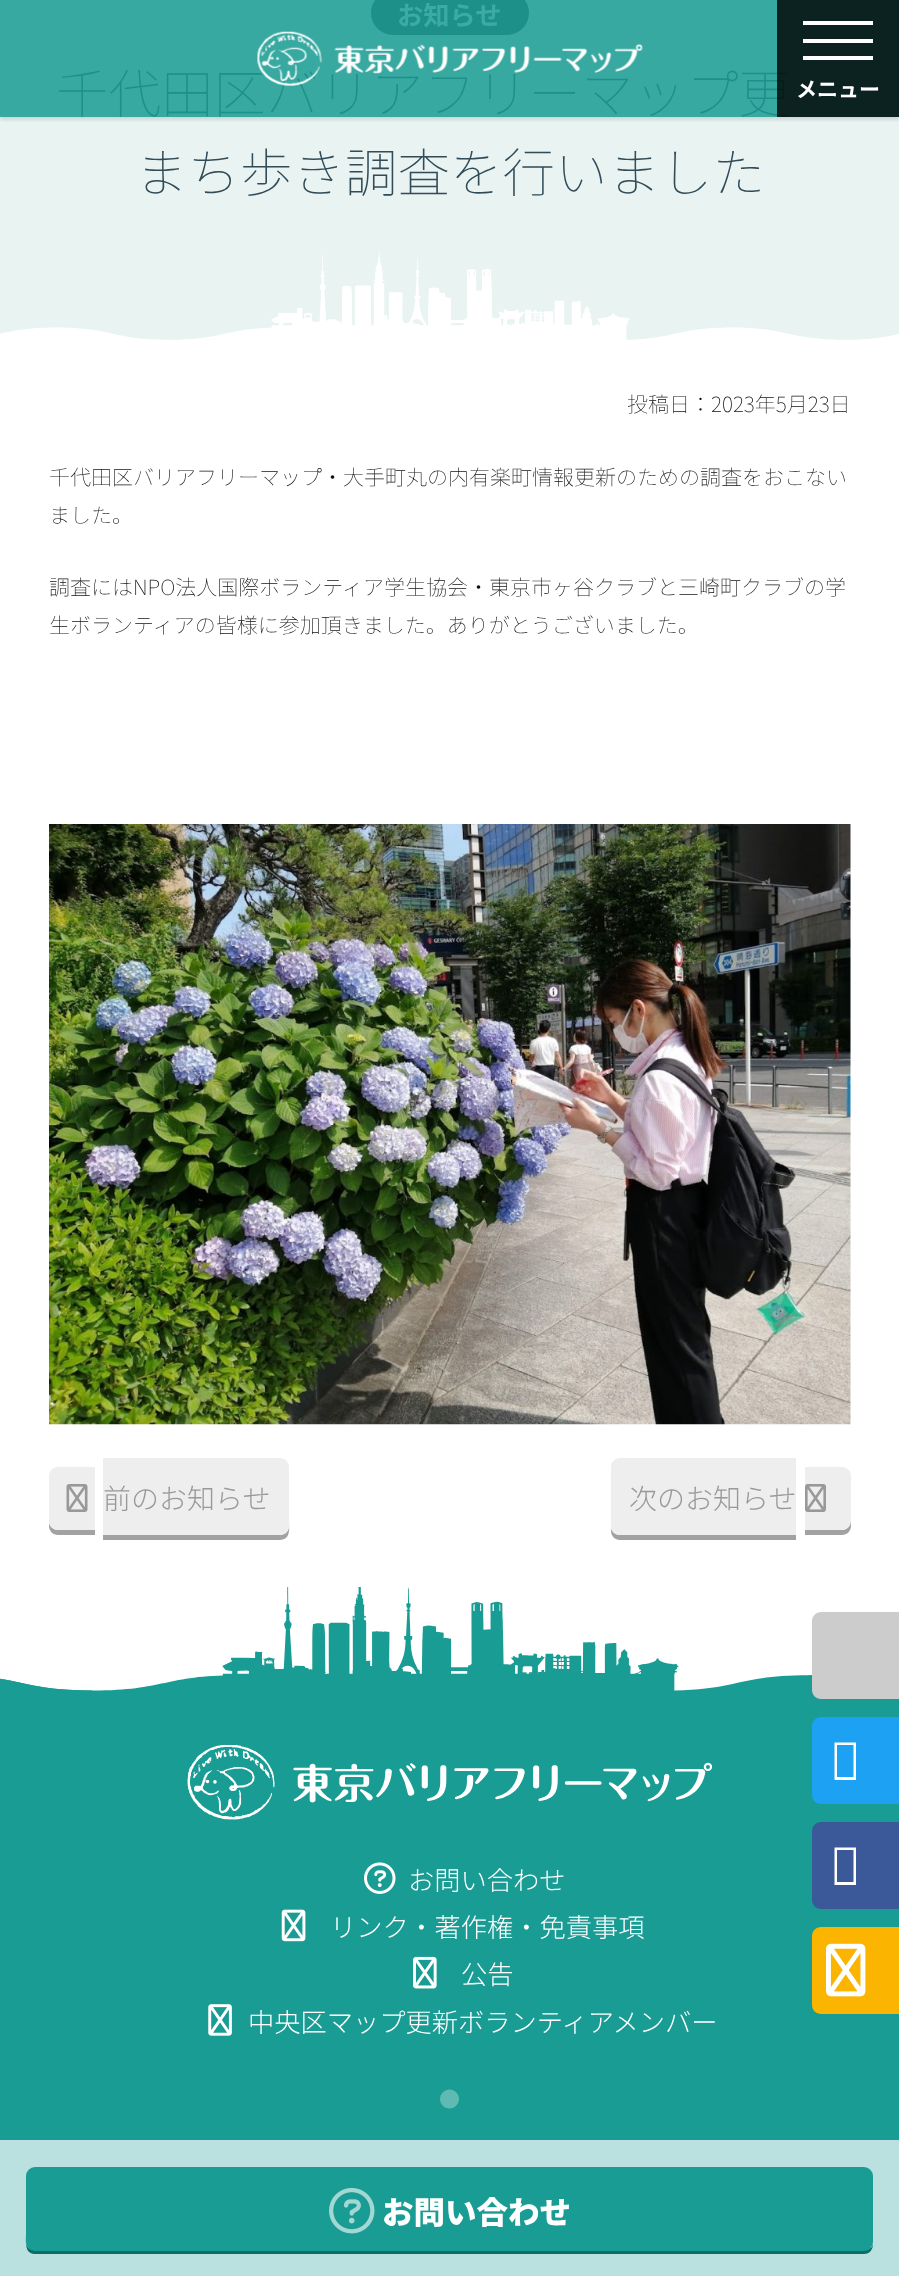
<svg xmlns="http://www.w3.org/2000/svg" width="899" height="2276">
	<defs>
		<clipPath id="clip1"><rect x="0" y="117" width="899" height="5" /></clipPath>
	</defs>
	<rect width="100%" height="100%" fill="#199C93" />
	<rect x="0" y="2140" width="899" height="136" fill="#BAE1DF" />
	<rect x="0" y="117" width="899" height="223" fill="#E8F3F2" />
	<rect x="0" y="0" width="899" height="117" fill="#38A9A1" />
	<rect x="371" y="-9" width="158" height="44" rx="22" fill="#1D908A" />
	<g clip-path="url(#clip1)">
		<rect x="0" y="2" width="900" height="117" fill="#000000" fill-opacity="0.15" filter="blur(2.5px)" />
	</g>
	<text x="56" y="113" font-family="Noto Sans JP" font-size="52.5" font-weight="100" fill="#1D908A">千代田区バリアフリーマップ更</text>
	<image x="257" y="31" width="386" height="55" href="assets/img1.png" />
	<image x="0" y="248" width="899" height="93" href="assets/img2.png" />
	<text x="397" y="25" font-family="Noto Sans JP" font-size="26.25" font-weight="700" fill="#3CABA3">お知らせ</text>
	<text x="135" y="192" font-family="Noto Sans JP" font-size="52.5" font-weight="100" fill="#314B57">まち歩き調査を行いました</text>
	<rect x="0" y="341" width="899" height="1350" fill="#FFFFFF" />
	<image x="0" y="1587" width="813" height="105" href="assets/img3.png" />
	<g font-family="Noto Sans JP" font-size="21" font-weight="100" fill="#111111">
		<text x="627" y="412">投稿日：2023年5月23日</text>
		<text x="49" y="485">千代田区バリアフリーマップ・大手町丸の内有楽町情報更新のための調査をおこない</text>
		<text x="49" y="523">ました。</text>
		<text x="49" y="595">調査にはNPO法人国際ボランティア学生協会・東京市ヶ谷クラブと三崎町クラブの学</text>
		<text x="49" y="633">生ボランティアの皆様に参加頂きました。ありがとうございました。</text>
	</g>
	<image x="49" y="824" width="802" height="601" href="assets/img4.png" />
	<path d="M49 1521V1526C49 1531 53 1535 58 1535H95V1472H94V1530H58C53 1530 49 1526 49 1521Z" fill="#A2A2A2" />
	<path d="M58 1467H95V1530H58C53 1530 49 1526 49 1521V1476C49 1471 53 1467 58 1467Z" fill="#EEEEEE" />
	<path d="M103 1463V1540H280C291 1540 289 1528 289 1521V1470V1526C289 1531 285 1535 280 1535H103Z" fill="#A2A2A2" />
	<path d="M103 1458H280C285 1458 289 1462 289 1467V1526C289 1531 285 1535 280 1535H103Z" fill="#EEEEEE" />
	<image x="66" y="1484" width="22" height="28" href="assets/img5.png" />
	<text x="103" y="1509" font-family="Noto Sans JP" font-size="28" font-weight="300" fill="#999999">前のお知らせ</text>
	<path d="M611 1528V1531C611 1536 615 1540 620 1540H796V1535H620C615 1535 612 1532 611 1528Z" fill="#A2A2A2" />
	<path d="M620 1458H796V1535H620C615 1535 611 1531 611 1526V1467C611 1462 615 1458 620 1458Z" fill="#EEEEEE" />
	<path d="M805 1530V1535H842C847 1535 851 1531 851 1526V1481L850 1478V1521C850 1526 847 1530 842 1530Z" fill="#A2A2A2" />
	<path d="M805 1467H842C847 1467 851 1471 851 1476V1521C851 1526 847 1530 842 1530H805Z" fill="#EEEEEE" />
	<text x="629" y="1509" font-family="Noto Sans JP" font-size="28" font-weight="300" fill="#999999">次のお知らせ</text>
	<image x="805" y="1484" width="21" height="28" href="assets/img6.png" />
	<rect x="777" y="0" width="122" height="117" fill="#000000" fill-opacity="0.8" />
	<rect x="803" y="39" width="70" height="4" fill="#FFFFFF" />
	<rect x="803" y="21" width="70" height="4" fill="#FFFFFF" />
	<rect x="803" y="56" width="70" height="4" fill="#FFFFFF" />
	<text x="796" y="97" font-family="Noto Sans JP" font-size="21" font-weight="700" fill="#FFFFFF">メニュー</text>
	<image x="187" y="1745" width="525" height="75" href="assets/img7.png" />
	<image x="364" y="1862" width="32" height="32" href="assets/img8.png" />
	<text x="408" y="1890" font-family="Noto Sans JP" font-size="26.25" font-weight="300" fill="#FFFFFF">お問い合わせ</text>
	<image x="281" y="1909" width="25" height="33" href="assets/img9.png" />
	<text x="330" y="1937" font-family="Noto Sans JP" font-size="26.25" font-weight="300" fill="#FFFFFF">リンク・著作権・免責事項</text>
	<image x="413" y="1956" width="24" height="33" href="assets/img10.png" />
	<text x="461" y="1984" font-family="Noto Sans JP" font-size="26.25" font-weight="300" fill="#FFFFFF">公告</text>
	<image x="208" y="2004" width="24" height="32" href="assets/img11.png" />
	<text x="248" y="2032" font-family="Noto Sans JP" font-size="26.25" font-weight="300" fill="#FFFFFF">中央区マップ更新ボランティアメンバー</text>
	<text x="439" y="2107" font-family="Noto Sans JP" font-size="21" font-weight="100" fill="#5EBAB3">●</text>
	<path d="M26 2177V2234C26 2241 24 2254 35 2254H864C870 2254 873 2249 873 2244C872 2248 869 2250 864 2250H35C30 2250 26 2247 26 2242Z" fill="#096F68" />
	<rect x="26" y="2167" width="847" height="84" rx="9" fill="#199C93" />
	<image x="329" y="2187" width="46" height="47" href="assets/img12.png" />
	<text x="382" y="2224" font-family="Noto Sans JP" font-size="31.5" font-weight="900" fill="#FFFFFF">お問い合わせ</text>
	<path d="M821 1612H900V1699H821C816 1699 812 1695 812 1690V1621C812 1616 816 1612 821 1612Z" fill="#CCCCCC" />
	<path d="M821 1717H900V1804H821C816 1804 812 1800 812 1795V1726C812 1721 816 1717 821 1717Z" fill="#1DA1F2" />
	<path d="M834.5 1780V1742.5H856V1780ZM837 1777H853.5V1745H837Z" fill="#FFFFFF" />
	<path d="M821 1822H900V1909H821C816 1909 812 1905 812 1900V1831C812 1826 816 1822 821 1822Z" fill="#3B5998" />
	<path d="M834.5 1885V1847.5H856V1885ZM837 1882H853.5V1850H837Z" fill="#FFFFFF" />
	<path d="M821 1927H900V2014H821C816 2014 812 2010 812 2005V1936C812 1931 816 1927 821 1927Z" fill="#FBB400" />
	<image x="826" y="1943" width="40" height="54" href="assets/img13.png" />
</svg>
